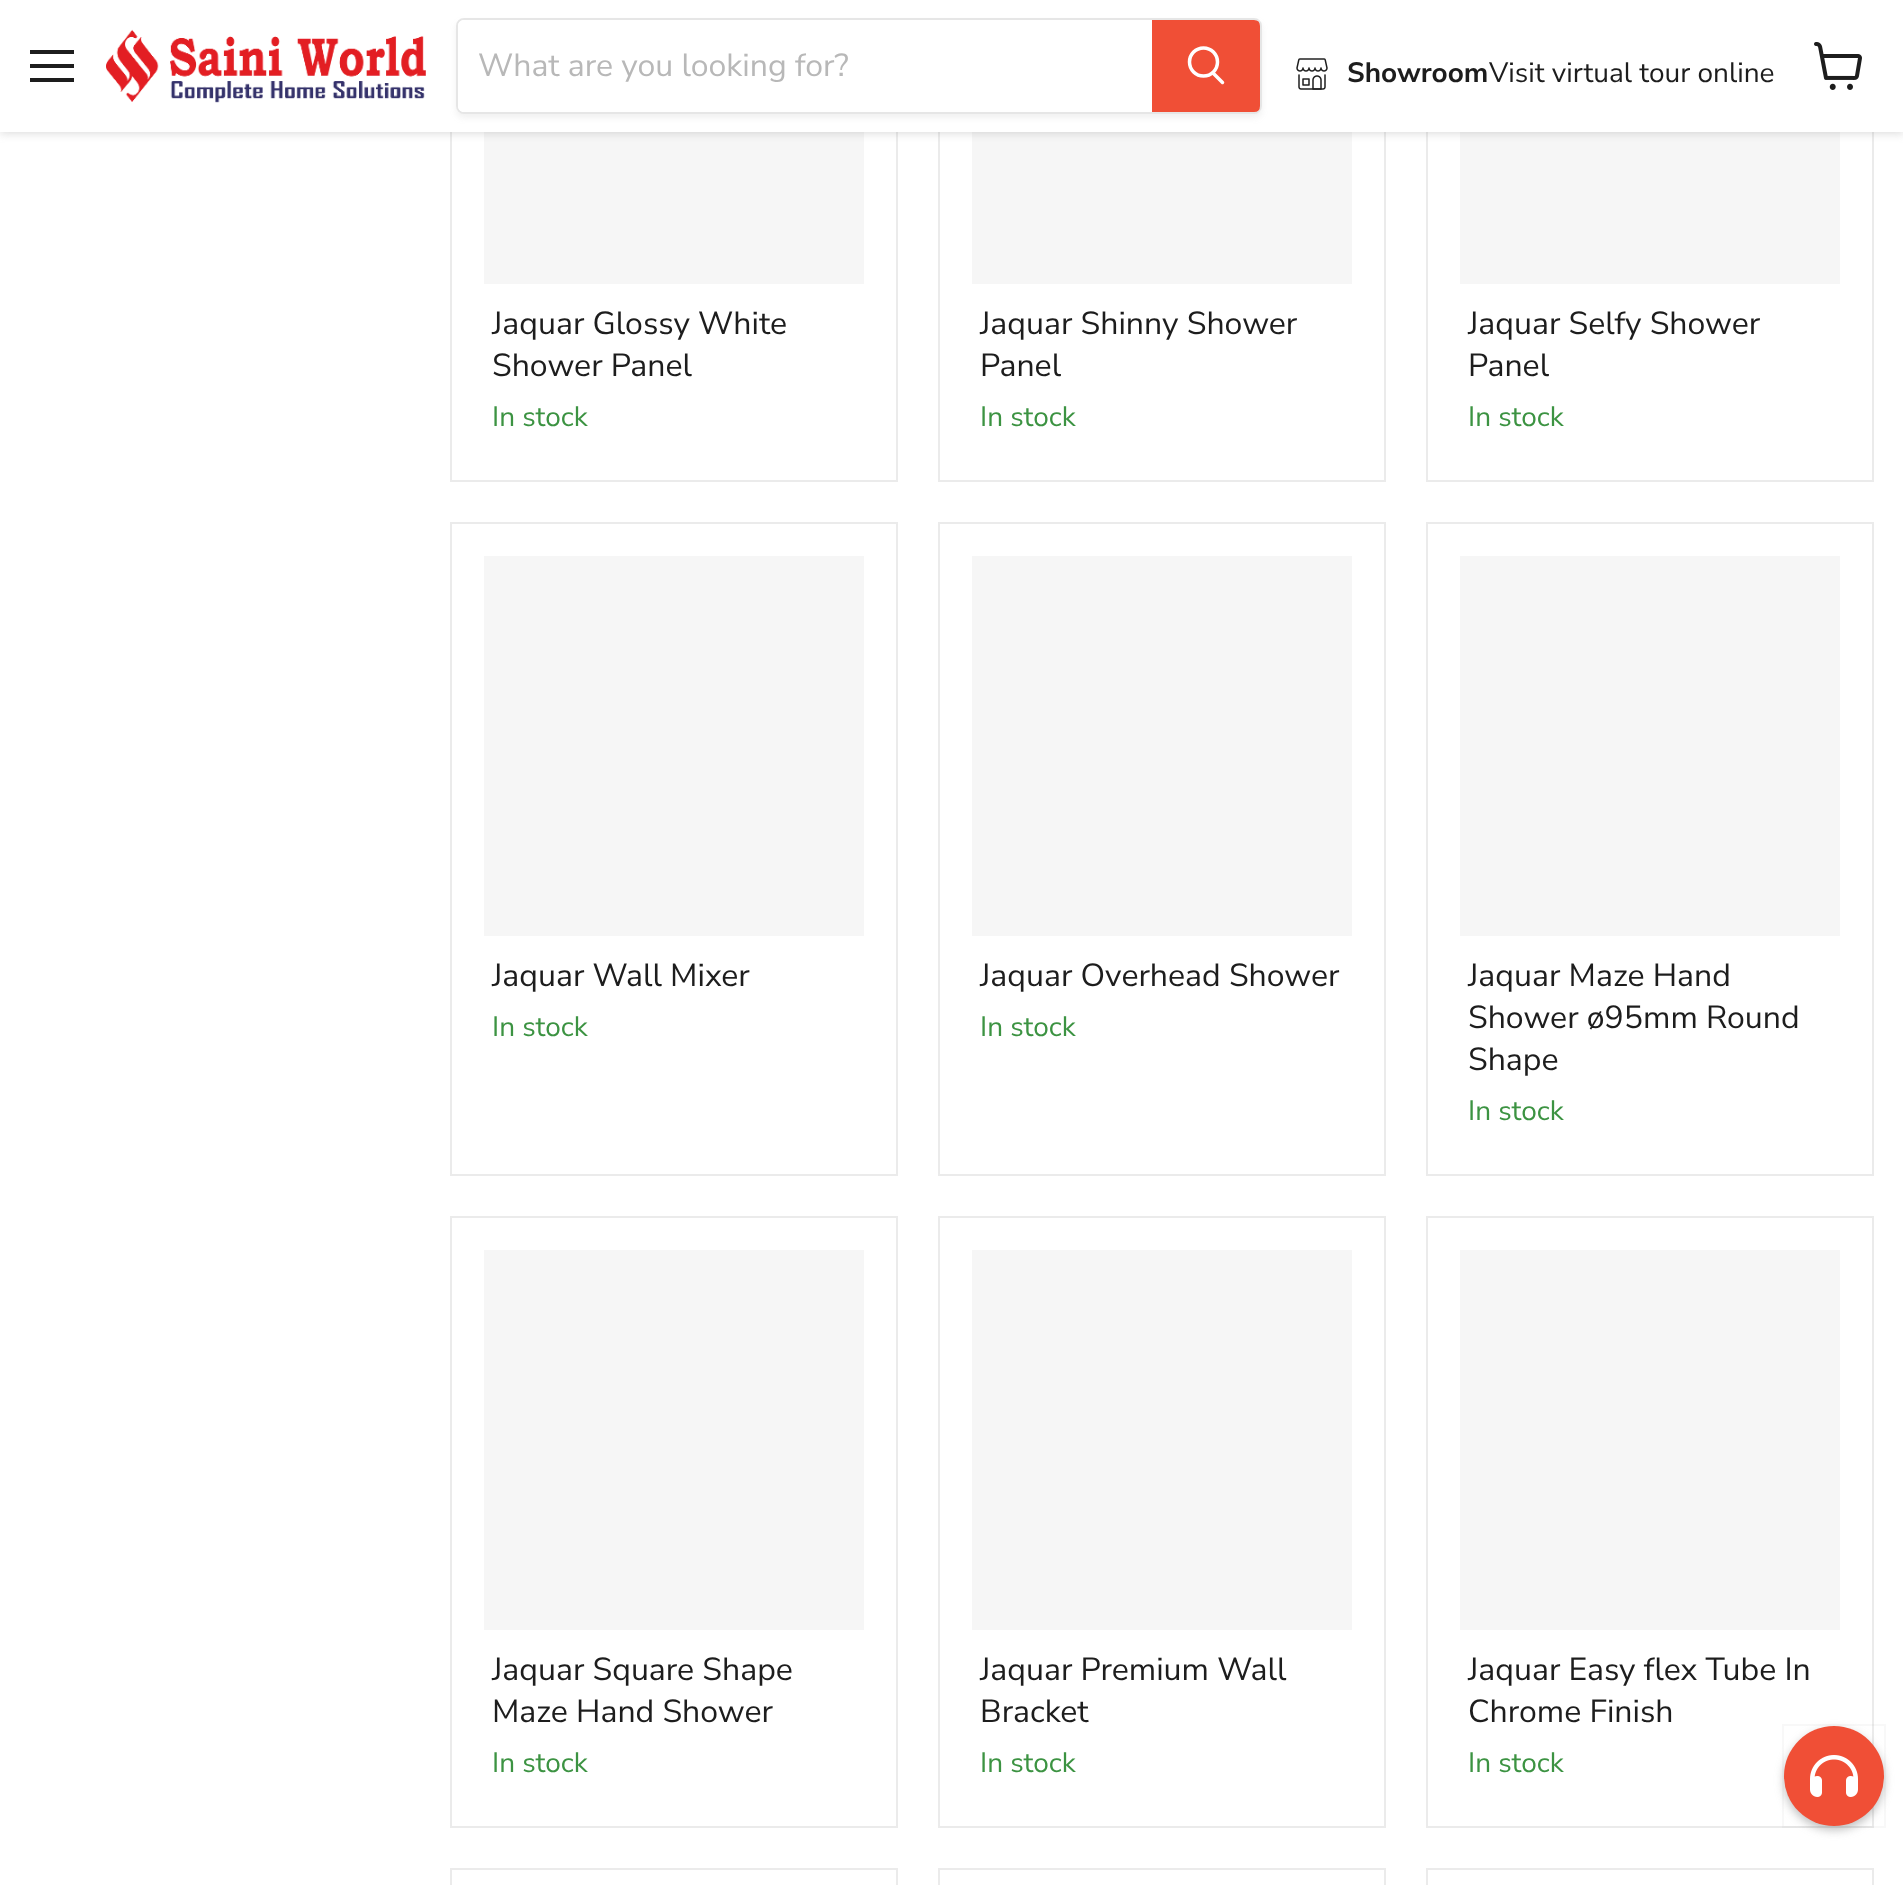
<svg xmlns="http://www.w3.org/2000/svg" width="1903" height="1885">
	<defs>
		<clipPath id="clip1"><path d="M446 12H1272V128H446ZM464 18H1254C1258.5 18 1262 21.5 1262 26V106C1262 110.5 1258.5 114 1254 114H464C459.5 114 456 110.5 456 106V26C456 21.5 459.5 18 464 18Z" clip-rule="evenodd" /></clipPath>
	</defs>
	<rect width="100%" height="100%" fill="#FFFFFF" />
	<rect x="451" y="-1" width="446" height="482" fill="none" stroke="#EBEBEB" stroke-width="2" />
	<rect x="484" y="132" width="380" height="152" fill="#F6F6F6" />
	<rect x="939" y="-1" width="446" height="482" fill="none" stroke="#EBEBEB" stroke-width="2" />
	<rect x="972" y="132" width="380" height="152" fill="#F6F6F6" />
	<rect x="1427" y="-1" width="446" height="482" fill="none" stroke="#EBEBEB" stroke-width="2" />
	<rect x="1460" y="132" width="380" height="152" fill="#F6F6F6" />
	<rect x="0" y="2" width="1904" height="132" fill="#808080" fill-opacity="0.25" filter="blur(4px)" />
	<rect x="0" y="0" width="1903" height="132" fill="#FFFFFF" />
	<rect x="30" y="50" width="44" height="4" fill="#1D1D1D" />
	<rect x="30" y="64" width="44" height="4" fill="#1D1D1D" />
	<rect x="30" y="78" width="44" height="4" fill="#1D1D1D" />
	<image x="106" y="29" width="320" height="74" href="assets/img1.png" />
	<g clip-path="url(#clip1)">
		<rect x="456" y="22" width="806" height="96" rx="8" fill="#808080" fill-opacity="0.11" filter="blur(3px)" />
	</g>
	<rect x="457" y="19" width="804" height="94" rx="7" fill="none" stroke="#808080" stroke-opacity="0.2" stroke-width="2" />
	<path d="M464 20H1152V112H464C460.5 112 458 109.5 458 106V26C458 22.5 460.5 20 464 20Z" fill="#FFFFFF" />
	<text x="478" y="76" font-family="Nunito Sans" font-size="32" fill="#B8B8B8">What are you looking for?</text>
	<path d="M1153 21H1254C1257 21 1259 23 1259 26V106C1259 109 1257 111 1254 111H1153Z" fill="#F04F36" stroke="#F04F36" stroke-width="2" />
	<path d="M1222.5 82.5L1213 73" fill="none" stroke="#FFFFFF" stroke-width="3.5" stroke-linecap="round" />
	<circle cx="1203.5" cy="62" r="14" fill="none" stroke="#FFFFFF" stroke-width="3.5" />
	<image x="1296" y="58" width="32" height="32" href="assets/img2.png" />
	<text x="1347" y="82" font-family="Nunito Sans" font-size="28" font-weight="700" fill="#1D1D1D">Showroom</text>
	<text x="1489" y="82" font-family="Nunito Sans" font-size="28" fill="#1D1D1D">Visit virtual tour online</text>
	<image x="1814" y="42" width="48" height="48" href="assets/img3.png" />
	<g font-family="Nunito Sans" font-size="32" fill="#1D1D1D">
		<text x="492" y="334">Jaquar Glossy White</text>
		<text x="492" y="376">Shower Panel</text>
	</g>
	<text x="492" y="426" font-family="Nunito Sans" font-size="28" fill="#3C9342">In stock</text>
	<g font-family="Nunito Sans" font-size="32" fill="#1D1D1D">
		<text x="980" y="334">Jaquar Shinny Shower</text>
		<text x="980" y="376">Panel</text>
	</g>
	<text x="980" y="426" font-family="Nunito Sans" font-size="28" fill="#3C9342">In stock</text>
	<g font-family="Nunito Sans" font-size="32" fill="#1D1D1D">
		<text x="1468" y="334">Jaquar Selfy Shower</text>
		<text x="1468" y="376">Panel</text>
	</g>
	<text x="1468" y="426" font-family="Nunito Sans" font-size="28" fill="#3C9342">In stock</text>
	<rect x="451" y="523" width="446" height="652" fill="none" stroke="#EBEBEB" stroke-width="2" />
	<rect x="484" y="556" width="380" height="380" fill="#F6F6F6" />
	<text x="492" y="986" font-family="Nunito Sans" font-size="32" fill="#1D1D1D">Jaquar Wall Mixer</text>
	<text x="492" y="1036" font-family="Nunito Sans" font-size="28" fill="#3C9342">In stock</text>
	<rect x="939" y="523" width="446" height="652" fill="none" stroke="#EBEBEB" stroke-width="2" />
	<rect x="972" y="556" width="380" height="380" fill="#F6F6F6" />
	<text x="980" y="986" font-family="Nunito Sans" font-size="32" fill="#1D1D1D">Jaquar Overhead Shower</text>
	<text x="980" y="1036" font-family="Nunito Sans" font-size="28" fill="#3C9342">In stock</text>
	<rect x="1427" y="523" width="446" height="652" fill="none" stroke="#EBEBEB" stroke-width="2" />
	<rect x="1460" y="556" width="380" height="380" fill="#F6F6F6" />
	<g font-family="Nunito Sans" font-size="32" fill="#1D1D1D">
		<text x="1468" y="986">Jaquar Maze Hand</text>
		<text x="1468" y="1028">Shower ø95mm Round</text>
		<text x="1468" y="1070">Shape</text>
	</g>
	<text x="1468" y="1120" font-family="Nunito Sans" font-size="28" fill="#3C9342">In stock</text>
	<rect x="451" y="1217" width="446" height="610" fill="none" stroke="#EBEBEB" stroke-width="2" />
	<rect x="484" y="1250" width="380" height="380" fill="#F6F6F6" />
	<g font-family="Nunito Sans" font-size="32" fill="#1D1D1D">
		<text x="492" y="1680">Jaquar Square Shape</text>
		<text x="492" y="1722">Maze Hand Shower</text>
	</g>
	<text x="492" y="1772" font-family="Nunito Sans" font-size="28" fill="#3C9342">In stock</text>
	<rect x="939" y="1217" width="446" height="610" fill="none" stroke="#EBEBEB" stroke-width="2" />
	<rect x="972" y="1250" width="380" height="380" fill="#F6F6F6" />
	<g font-family="Nunito Sans" font-size="32" fill="#1D1D1D">
		<text x="980" y="1680">Jaquar Premium Wall</text>
		<text x="980" y="1722">Bracket</text>
	</g>
	<text x="980" y="1772" font-family="Nunito Sans" font-size="28" fill="#3C9342">In stock</text>
	<rect x="1427" y="1217" width="446" height="610" fill="none" stroke="#EBEBEB" stroke-width="2" />
	<rect x="1460" y="1250" width="380" height="380" fill="#F6F6F6" />
	<g font-family="Nunito Sans" font-size="32" fill="#1D1D1D">
		<text x="1468" y="1680">Jaquar Easy flex Tube In</text>
		<text x="1468" y="1722">Chrome Finish</text>
	</g>
	<text x="1468" y="1772" font-family="Nunito Sans" font-size="28" fill="#3C9342">In stock</text>
	<rect x="451" y="1869" width="446" height="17" fill="none" stroke="#EBEBEB" stroke-width="2" />
	<rect x="939" y="1869" width="446" height="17" fill="none" stroke="#EBEBEB" stroke-width="2" />
	<rect x="1427" y="1869" width="446" height="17" fill="none" stroke="#EBEBEB" stroke-width="2" />
	<rect x="1784" y="1730" width="100" height="100" rx="50" fill="#7F7F7F" fill-opacity="0.5" filter="blur(5px)" />
	<rect x="1783" y="1725" width="102" height="102" fill="none" stroke="#7F7F7F" stroke-opacity="0.05" stroke-width="2" />
	<circle cx="1834" cy="1776" r="50" fill="#F04F36" />
	<image x="1810" y="1755" width="48" height="42" href="assets/img4.png" />
</svg>
